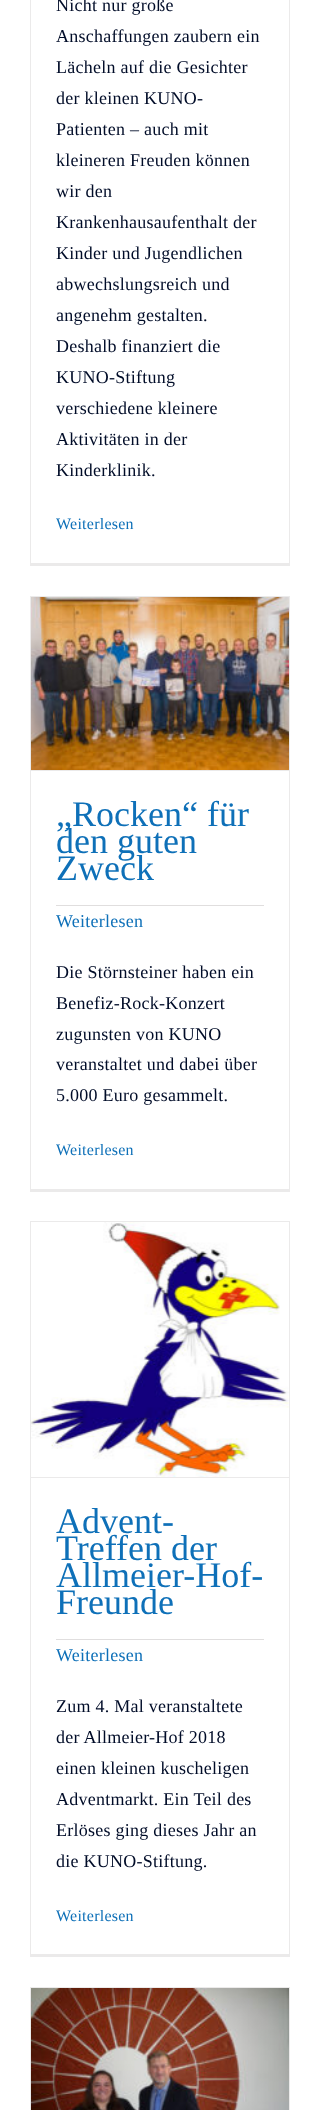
<svg xmlns="http://www.w3.org/2000/svg" width="318" height="2110">
	<rect width="100%" height="100%" fill="#FFFFFF" />
	<rect x="289" y="0" width="1" height="566" fill="#EBEAEA" />
	<rect x="30" y="563" width="260" height="3" fill="#EBEAEA" />
	<rect x="30" y="0" width="1" height="566" fill="#EBEAEA" />
	<g font-family="Liberation Serif" font-size="18" letter-spacing="0.25" fill="#000C28">
		<text x="56" y="11">Nicht nur große</text>
		<text x="56" y="42">Anschaffungen zaubern ein</text>
		<text x="56" y="73">Lächeln auf die Gesichter</text>
		<text x="56" y="104">der kleinen KUNO-</text>
		<text x="56" y="135">Patienten – auch mit</text>
		<text x="56" y="166">kleineren Freuden können</text>
		<text x="56" y="197">wir den</text>
		<text x="56" y="228">Krankenhausaufenthalt der</text>
		<text x="56" y="259">Kinder und Jugendlichen</text>
		<text x="56" y="290">abwechslungsreich und</text>
		<text x="56" y="321">angenehm gestalten.</text>
		<text x="56" y="352">Deshalb finanziert die</text>
		<text x="56" y="383">KUNO-Stiftung</text>
		<text x="56" y="414">verschiedene kleinere</text>
		<text x="56" y="445">Aktivitäten in der</text>
		<text x="56" y="476">Kinderklinik.</text>
	</g>
	<text x="56" y="529" font-family="Liberation Serif" font-size="16" letter-spacing="0.25" fill="#0E70B8">Weiterlesen</text>
	<rect x="30" y="596" width="260" height="1" fill="#EBEAEA" />
	<rect x="289" y="596" width="1" height="596" fill="#EBEAEA" />
	<rect x="30" y="1189" width="260" height="3" fill="#EBEAEA" />
	<rect x="30" y="596" width="1" height="596" fill="#EBEAEA" />
	<rect x="31" y="770" width="258" height="1" fill="#EBEAEA" />
	<image x="31" y="597" width="258" height="173" href="assets/img1.png" />
	<g font-family="Liberation Serif" font-size="36" fill="#0E70B8">
		<text x="56" y="826">„Rocken“ für</text>
		<text x="56" y="853">den guten</text>
		<text x="56" y="880">Zweck</text>
	</g>
	<rect x="56" y="905" width="208" height="1" fill="#E0DEDE" />
	<text x="56" y="927" font-family="Liberation Serif" font-size="18" letter-spacing="0.25" fill="#0E70B8">Weiterlesen</text>
	<g font-family="Liberation Serif" font-size="18" letter-spacing="0.25" fill="#000C28">
		<text x="56" y="978">Die Störnsteiner haben ein</text>
		<text x="56" y="1009">Benefiz-Rock-Konzert</text>
		<text x="56" y="1040">zugunsten von KUNO</text>
		<text x="56" y="1070">veranstaltet und dabei über</text>
		<text x="56" y="1101">5.000 Euro gesammelt.</text>
	</g>
	<text x="56" y="1155" font-family="Liberation Serif" font-size="16" letter-spacing="0.25" fill="#0E70B8">Weiterlesen</text>
	<rect x="30" y="1221" width="260" height="1" fill="#EBEAEA" />
	<rect x="289" y="1221" width="1" height="736" fill="#EBEAEA" />
	<rect x="30" y="1954" width="260" height="3" fill="#EBEAEA" />
	<rect x="30" y="1221" width="1" height="736" fill="#EBEAEA" />
	<rect x="31" y="1477" width="258" height="1" fill="#EBEAEA" />
	<image x="31" y="1222" width="258" height="255" href="assets/img2.png" />
	<g font-family="Liberation Serif" font-size="36" fill="#0E70B8">
		<text x="56" y="1533">Advent-</text>
		<text x="56" y="1560">Treffen der</text>
		<text x="56" y="1587">Allmeier-Hof-</text>
		<text x="56" y="1614">Freunde</text>
	</g>
	<rect x="56" y="1639" width="208" height="1" fill="#E0DEDE" />
	<text x="56" y="1661" font-family="Liberation Serif" font-size="18" letter-spacing="0.25" fill="#0E70B8">Weiterlesen</text>
	<g font-family="Liberation Serif" font-size="18" letter-spacing="0.25" fill="#000C28">
		<text x="56" y="1712">Zum 4. Mal veranstaltete</text>
		<text x="56" y="1743">der Allmeier-Hof 2018</text>
		<text x="56" y="1774">einen kleinen kuscheligen</text>
		<text x="56" y="1805">Adventmarkt. Ein Teil des</text>
		<text x="56" y="1836">Erlöses ging dieses Jahr an</text>
		<text x="56" y="1867">die KUNO-Stiftung.</text>
	</g>
	<text x="56" y="1921" font-family="Liberation Serif" font-size="16" letter-spacing="0.25" fill="#0E70B8">Weiterlesen</text>
	<rect x="30" y="1987" width="260" height="1" fill="#EBEAEA" />
	<rect x="289" y="1987" width="1" height="123" fill="#EBEAEA" />
	<rect x="30" y="1987" width="1" height="123" fill="#EBEAEA" />
	<image x="31" y="1988" width="258" height="122" href="assets/img3.png" />
</svg>
